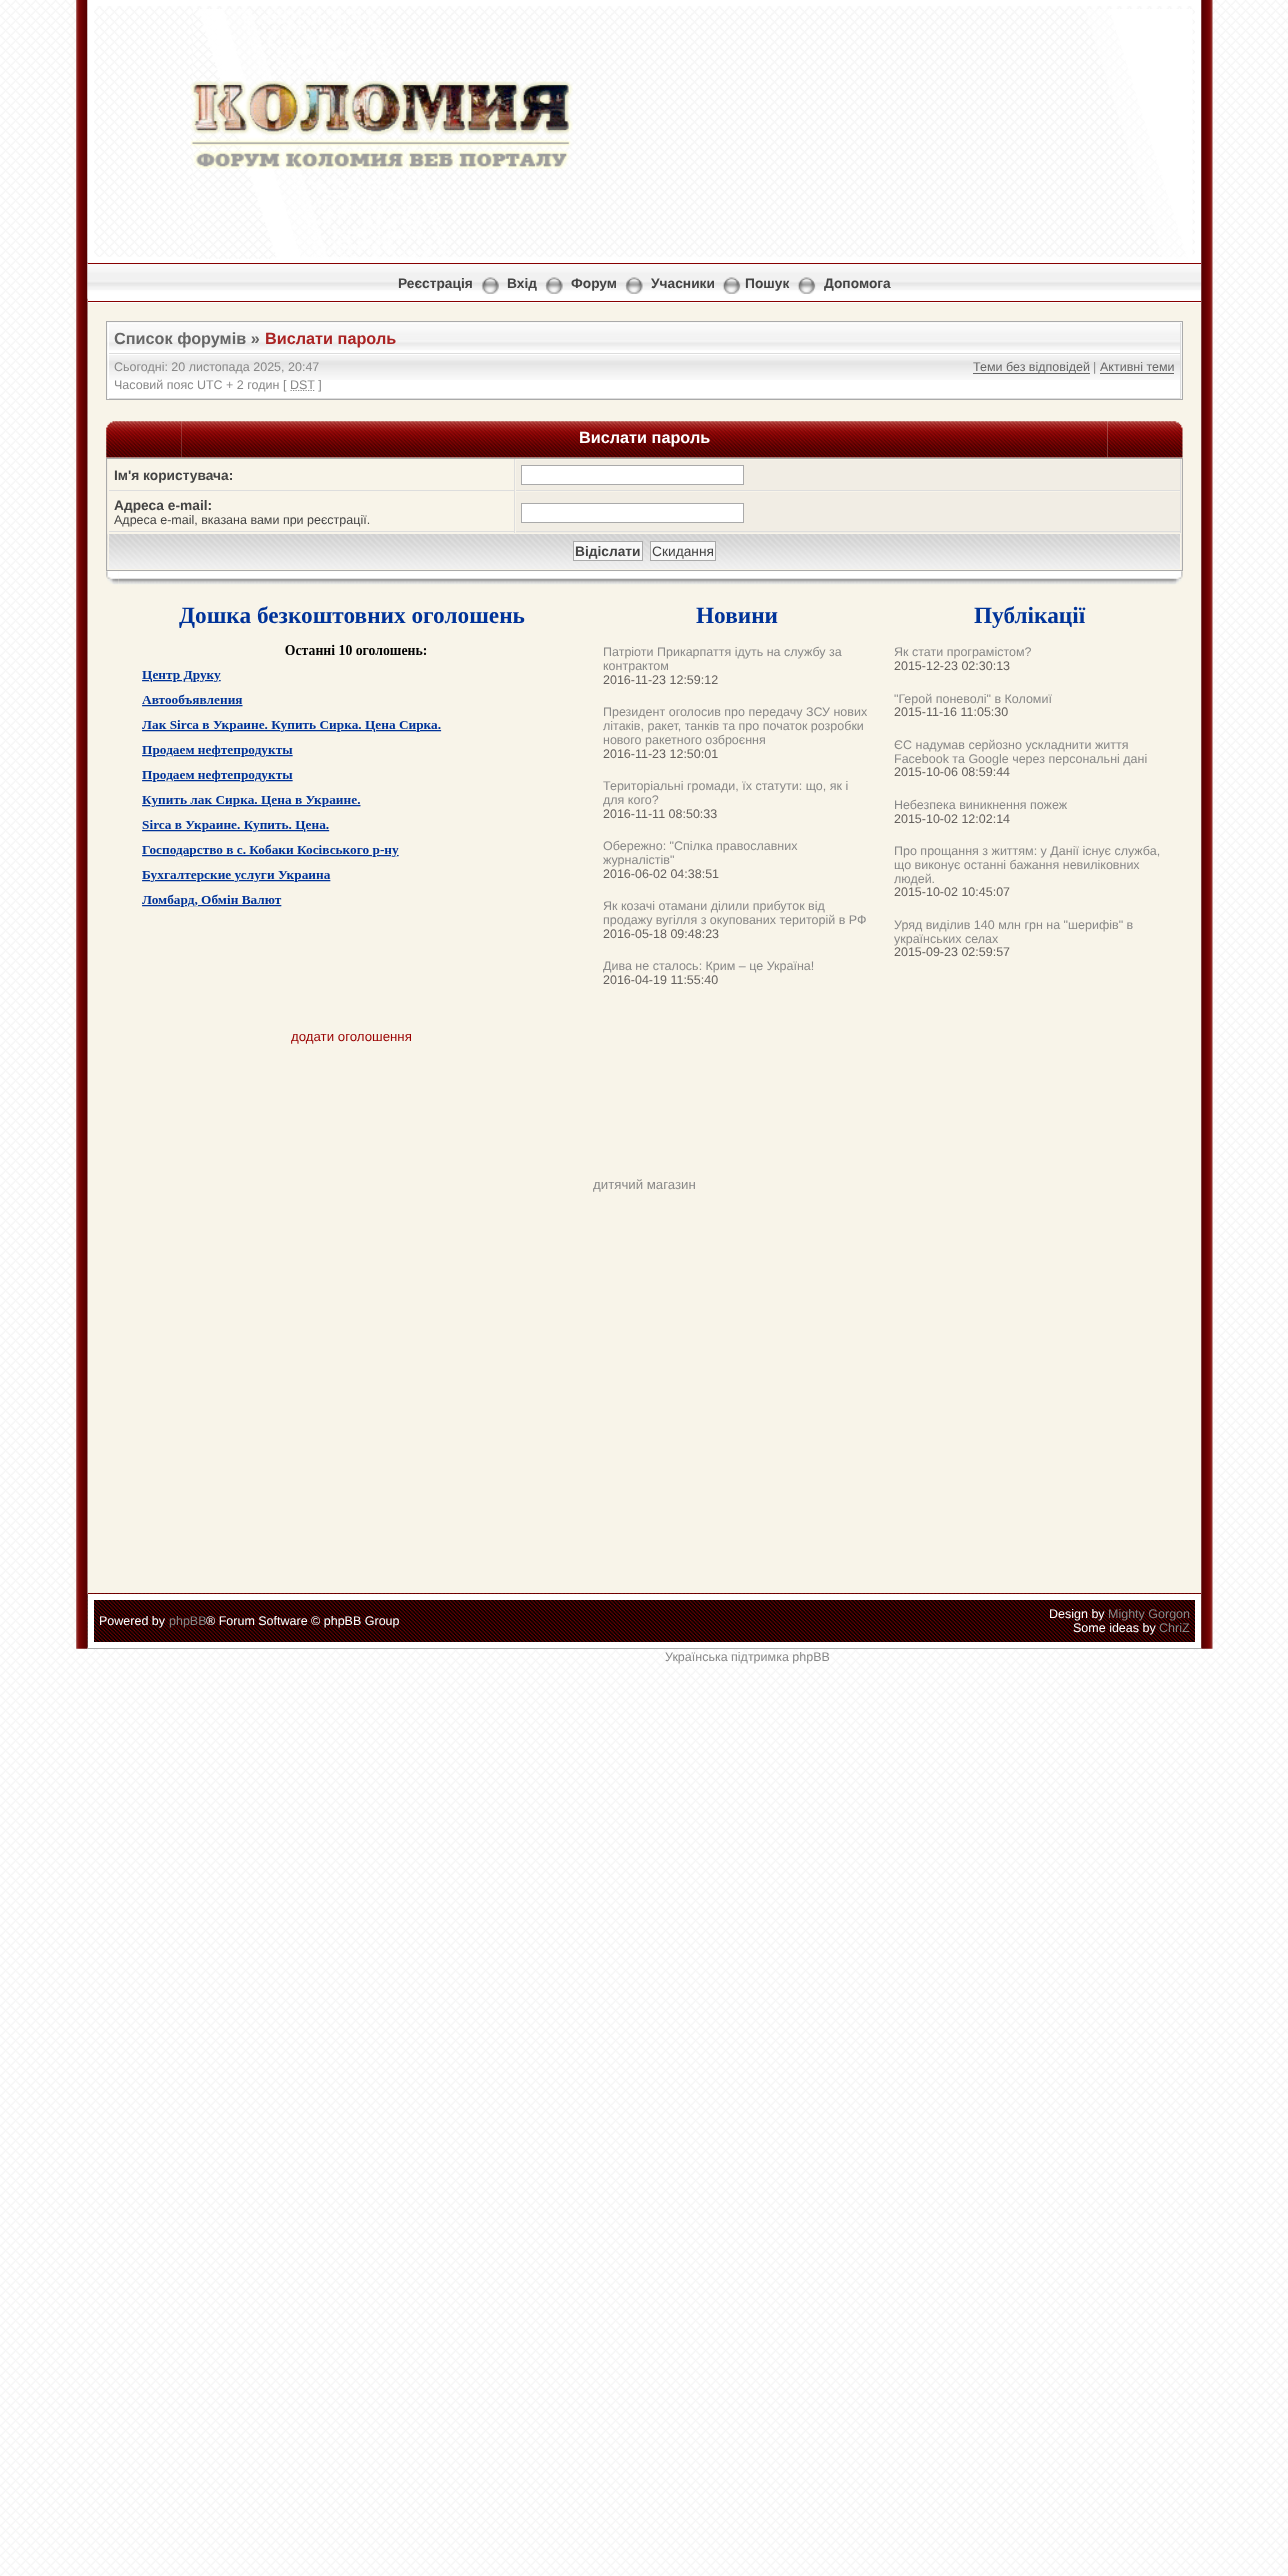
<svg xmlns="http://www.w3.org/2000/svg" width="1288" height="2576">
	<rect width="100%" height="100%" fill="#FFFFFF" />
	<image x="0" y="0" width="1288" height="2576" href="assets/img1.png" />
	<image x="76" y="0" width="12" height="1649" href="assets/img2.png" />
	<rect x="88" y="303" width="1113" height="1290" fill="#F8F4E9" />
	<image x="87" y="0" width="1108" height="263" href="assets/img3.png" />
	<rect x="91" y="3" width="1107" height="257" fill="none" stroke="#FFFFFF" stroke-width="6" />
	<image x="193" y="9" width="1000" height="250" href="assets/img4.png" />
	<image x="190" y="81" width="383" height="88" href="assets/img5.png" />
	<rect x="88" y="298" width="1113" height="5" fill="#FFFFFF" />
	<image x="87" y="263" width="1115" height="36" href="assets/img6.png" />
	<rect x="88" y="263" width="1113" height="1" fill="#880000" />
	<rect x="88" y="301" width="1113" height="1" fill="#880000" />
	<text x="398" y="288" font-family="Liberation Sans" font-size="13.75" font-weight="700" fill="#444444">Реєстрація</text>
	<image x="481" y="277" width="18" height="17" href="assets/img7.png" />
	<text x="507" y="288" font-family="Liberation Sans" font-size="13.75" font-weight="700" fill="#444444">Вхід</text>
	<image x="545" y="277" width="18" height="17" href="assets/img8.png" />
	<text x="571" y="288" font-family="Liberation Sans" font-size="13.75" font-weight="700" fill="#444444">Форум</text>
	<image x="625" y="277" width="18" height="17" href="assets/img9.png" />
	<text x="651" y="288" font-family="Liberation Sans" font-size="13.75" font-weight="700" fill="#444444">Учасники</text>
	<image x="722" y="277" width="19" height="17" href="assets/img10.png" />
	<text x="745" y="288" font-family="Liberation Sans" font-size="13.75" font-weight="700" fill="#444444">Пошук</text>
	<image x="797" y="277" width="19" height="17" href="assets/img10.png" />
	<text x="824" y="288" font-family="Liberation Sans" font-size="13.75" font-weight="700" fill="#444444">Допомога</text>
	<rect x="106.5" y="321.5" width="1076" height="78" fill="#F8F8F8" stroke="#AAAAAA" />
	<image x="107" y="323" width="1073" height="31" href="assets/img11.png" />
	<rect x="1180" y="323" width="1" height="1" fill="#FFFFFF" />
	<rect x="1180" y="323" width="1" height="31" fill="#DDDDDD" />
	<rect x="108" y="353" width="1073" height="1" fill="#DDDDDD" />
	<rect x="108" y="323" width="1" height="31" fill="#FFFFFF" />
	<text x="114" y="344" font-family="Liberation Sans" font-size="16.25" font-weight="700" fill="#666666">Список форумів »</text>
	<text x="265" y="344" font-family="Liberation Sans" font-size="16.25" font-weight="700" fill="#AA2222">Вислати пароль</text>
	<rect x="109" y="354" width="1071" height="44" fill="#FFFFFF" />
	<image x="107" y="355" width="1075" height="25" href="assets/img12.png" />
	<rect x="1180" y="354" width="1" height="45" fill="#DDDDDD" />
	<rect x="108" y="398" width="1073" height="1" fill="#DDDDDD" />
	<rect x="108" y="354" width="1" height="45" fill="#FFFFFF" />
	<g font-family="Liberation Sans" font-size="12.5" fill="#888888">
		<text x="114" y="371">Сьогодні: 20 листопада 2025, 20:47</text>
		<text x="114" y="389">Часовий пояс UTC + 2 годин [</text>
	</g>
	<path d="M290.5 390.5H315" fill="none" stroke="#888888" stroke-width="1.2" stroke-dasharray="1.25 1.25" />
	<text x="290" y="389" font-family="Liberation Sans" font-size="12.5" fill="#888888">DST ]</text>
	<rect x="973" y="373" width="117" height="1" fill="#666666" />
	<text x="973" y="371" font-family="Liberation Sans" font-size="12.5" fill="#666666">Теми без відповідей</text>
	<text x="1093" y="371" font-family="Liberation Sans" font-size="12.5" fill="#888888">|</text>
	<text x="1100" y="371" font-family="Liberation Sans" font-size="12.5" fill="#666666">Активні теми</text>
	<rect x="1100" y="373" width="74" height="1" fill="#666666" />
	<image x="106" y="421" width="76" height="37" href="assets/img13.png" />
	<image x="1107" y="421" width="76" height="37" href="assets/img14.png" />
	<image x="181" y="421" width="927" height="37" href="assets/img15.png" />
	<text x="579" y="443" font-family="Liberation Sans" font-size="16.25" font-weight="700" fill="#FFFFFF">Вислати пароль</text>
	<rect x="106.5" y="458.5" width="1076" height="112" fill="#F1EDE4" stroke="#AAAAAA" />
	<rect x="109" y="459" width="405" height="31" fill="#F8F4E9" />
	<rect x="514" y="459" width="1" height="74" fill="#DDDDDD" />
	<rect x="108" y="490" width="407" height="1" fill="#DDDDDD" />
	<rect x="108" y="459" width="1" height="32" fill="#F8F4E9" />
	<text x="114" y="480" font-family="Liberation Sans" font-size="13.75" font-weight="700" fill="#444444">Ім'я користувача:</text>
	<rect x="515" y="459" width="666" height="1" fill="#F8F4E9" />
	<rect x="1180" y="459" width="1" height="32" fill="#DDDDDD" />
	<rect x="515" y="490" width="666" height="1" fill="#DDDDDD" />
	<rect x="515" y="459" width="1" height="32" fill="#F8F4E9" />
	<rect x="521.5" y="465.5" width="222" height="19" fill="#FFFFFF" stroke="#AAAAAA" />
	<rect x="109" y="491" width="405" height="42" fill="#F8F4E9" />
	<rect x="108" y="531" width="407" height="1" fill="#DDDDDD" />
	<rect x="108" y="491" width="1" height="42" fill="#F8F4E9" />
	<text x="114" y="510" font-family="Liberation Sans" font-size="13.75" font-weight="700" fill="#444444">Адреса e-mail:</text>
	<text x="114" y="524" font-family="Liberation Sans" font-size="12.5" fill="#444444">Адреса e-mail, вказана вами при реєстрації.</text>
	<rect x="515" y="491" width="666" height="1" fill="#F8F4E9" />
	<rect x="1180" y="491" width="1" height="42" fill="#DDDDDD" />
	<rect x="515" y="531" width="666" height="1" fill="#DDDDDD" />
	<rect x="515" y="491" width="1" height="42" fill="#F8F4E9" />
	<rect x="521.5" y="503.5" width="222" height="19" fill="#FFFFFF" stroke="#AAAAAA" />
	<image x="107" y="534" width="1075" height="36" href="assets/img16.png" />
	<rect x="108.5" y="533.5" width="1072" height="36" fill="none" stroke="#F8F4E9" />
	<rect x="573.5" y="541.5" width="69" height="19" fill="#F8F8F8" stroke="#AAAAAA" />
	<text x="575" y="556" font-family="Liberation Sans" font-size="13.75" font-weight="700" fill="#444444">Відіслати</text>
	<rect x="650.5" y="541.5" width="65" height="19" fill="#F8F8F8" stroke="#AAAAAA" />
	<text x="652" y="556" font-family="Liberation Sans" font-size="13.75" fill="#444444">Скидання</text>
	<image x="106" y="571" width="13" height="14" href="assets/img17.png" />
	<image x="1170" y="571" width="13" height="14" href="assets/img18.png" />
	<image x="118" y="571" width="1052" height="14" href="assets/img19.png" />
	<text x="179" y="623" font-family="Liberation Serif" font-size="23.3" font-weight="700" fill="#003399">Дошка безкоштовних оголошень</text>
	<image x="142" y="644" width="300" height="263" href="assets/img20.png" />
	<text x="291" y="1041" font-family="Liberation Sans" font-size="13.25" fill="#990000">додати оголошення</text>
	<text x="696" y="623" font-family="Liberation Serif" font-size="23.3" font-weight="700" fill="#003399">Новини</text>
	<g font-family="Liberation Sans" font-size="12.5" fill="#888888">
		<text x="603" y="656">Патріоти Прикарпаття ідуть на службу за</text>
		<text x="603" y="670">контрактом</text>
	</g>
	<text x="603" y="684" font-family="Liberation Sans" font-size="12.5" fill="#64605E">2016-11-23 12:59:12</text>
	<g font-family="Liberation Sans" font-size="12.5" fill="#888888">
		<text x="603" y="716">Президент оголосив про передачу ЗСУ нових</text>
		<text x="603" y="730">літаків, ракет, танків та про початок розробки</text>
		<text x="603" y="744">нового ракетного озброєння</text>
	</g>
	<text x="603" y="758" font-family="Liberation Sans" font-size="12.5" fill="#64605E">2016-11-23 12:50:01</text>
	<g font-family="Liberation Sans" font-size="12.5" fill="#888888">
		<text x="603" y="790">Територіальні громади, їх статути: що, як і</text>
		<text x="603" y="804">для кого?</text>
	</g>
	<text x="603" y="818" font-family="Liberation Sans" font-size="12.5" fill="#64605E">2016-11-11 08:50:33</text>
	<g font-family="Liberation Sans" font-size="12.5" fill="#888888">
		<text x="603" y="850">Обережно: "Спілка православних</text>
		<text x="603" y="864">журналістів"</text>
	</g>
	<text x="603" y="878" font-family="Liberation Sans" font-size="12.5" fill="#64605E">2016-06-02 04:38:51</text>
	<g font-family="Liberation Sans" font-size="12.5" fill="#888888">
		<text x="603" y="910">Як козачі отамани ділили прибуток від</text>
		<text x="603" y="924">продажу вугілля з окупованих територій в РФ</text>
	</g>
	<text x="603" y="938" font-family="Liberation Sans" font-size="12.5" fill="#64605E">2016-05-18 09:48:23</text>
	<text x="603" y="970" font-family="Liberation Sans" font-size="12.5" fill="#888888">Дива не сталось: Крим – це Україна!</text>
	<text x="603" y="984" font-family="Liberation Sans" font-size="12.5" fill="#64605E">2016-04-19 11:55:40</text>
	<text x="974" y="623" font-family="Liberation Serif" font-size="23.3" font-weight="700" fill="#003399">Публікації</text>
	<text x="894" y="656" font-family="Liberation Sans" font-size="12.5" fill="#888888">Як стати програмістом?</text>
	<text x="894" y="670" font-family="Liberation Sans" font-size="12.5" fill="#64605E">2015-12-23 02:30:13</text>
	<text x="894" y="703" font-family="Liberation Sans" font-size="12.5" fill="#888888">"Герой поневолі" в Коломиї</text>
	<text x="894" y="716" font-family="Liberation Sans" font-size="12.5" fill="#64605E">2015-11-16 11:05:30</text>
	<g font-family="Liberation Sans" font-size="12.5" fill="#888888">
		<text x="894" y="749">ЄC надумав серйозно ускладнити життя</text>
		<text x="894" y="763">Facebook та Google через персональні дані</text>
	</g>
	<text x="894" y="776" font-family="Liberation Sans" font-size="12.5" fill="#64605E">2015-10-06 08:59:44</text>
	<text x="894" y="809" font-family="Liberation Sans" font-size="12.5" fill="#888888">Небезпека виникнення пожеж</text>
	<text x="894" y="823" font-family="Liberation Sans" font-size="12.5" fill="#64605E">2015-10-02 12:02:14</text>
	<g font-family="Liberation Sans" font-size="12.5" fill="#888888">
		<text x="894" y="855">Про прощання з життям: у Данії існує служба,</text>
		<text x="894" y="869">що виконує останні бажання невиліковних</text>
		<text x="894" y="883">людей.</text>
	</g>
	<text x="894" y="896" font-family="Liberation Sans" font-size="12.5" fill="#64605E">2015-10-02 10:45:07</text>
	<g font-family="Liberation Sans" font-size="12.5" fill="#888888">
		<text x="894" y="929">Уряд виділив 140 млн грн на "шерифів" в</text>
		<text x="894" y="943">українських селах</text>
	</g>
	<text x="894" y="956" font-family="Liberation Sans" font-size="12.5" fill="#64605E">2015-09-23 02:59:57</text>
	<text x="593" y="1189" font-family="Liberation Sans" font-size="13.25" fill="#888888">дитячий магазин</text>
	<rect x="88" y="1593" width="1113" height="1" fill="#880000" />
	<rect x="88" y="1648" width="1113" height="1" fill="#AAAAAA" />
	<image x="87" y="1593" width="1115" height="55" href="assets/img21.png" />
	<rect x="91" y="1597" width="1107" height="48" fill="none" stroke="#FFFFFF" stroke-width="6" />
	<text x="99" y="1625" font-family="Liberation Sans" font-size="12.5" fill="#FFFFFF">Powered by</text>
	<text x="169" y="1625" font-family="Liberation Sans" font-size="12.5" fill="#888888">phpBB</text>
	<g font-family="Liberation Sans" font-size="12.5" fill="#FFFFFF">
		<text x="206" y="1625">® Forum Software © phpBB Group</text>
		<text x="1049" y="1618">Design by</text>
	</g>
	<text x="1108" y="1618" font-family="Liberation Sans" font-size="12.5" fill="#888888">Mighty Gorgon</text>
	<text x="1073" y="1632" font-family="Liberation Sans" font-size="12.5" fill="#FFFFFF">Some ideas by</text>
	<text x="1159" y="1632" font-family="Liberation Sans" font-size="12.5" fill="#888888">ChriZ</text>
	<image x="1201" y="0" width="12" height="1649" href="assets/img22.png" />
	<text x="665" y="1661" font-family="Liberation Sans" font-size="12.5" fill="#888888">Українська підтримка phpBB</text>
</svg>
